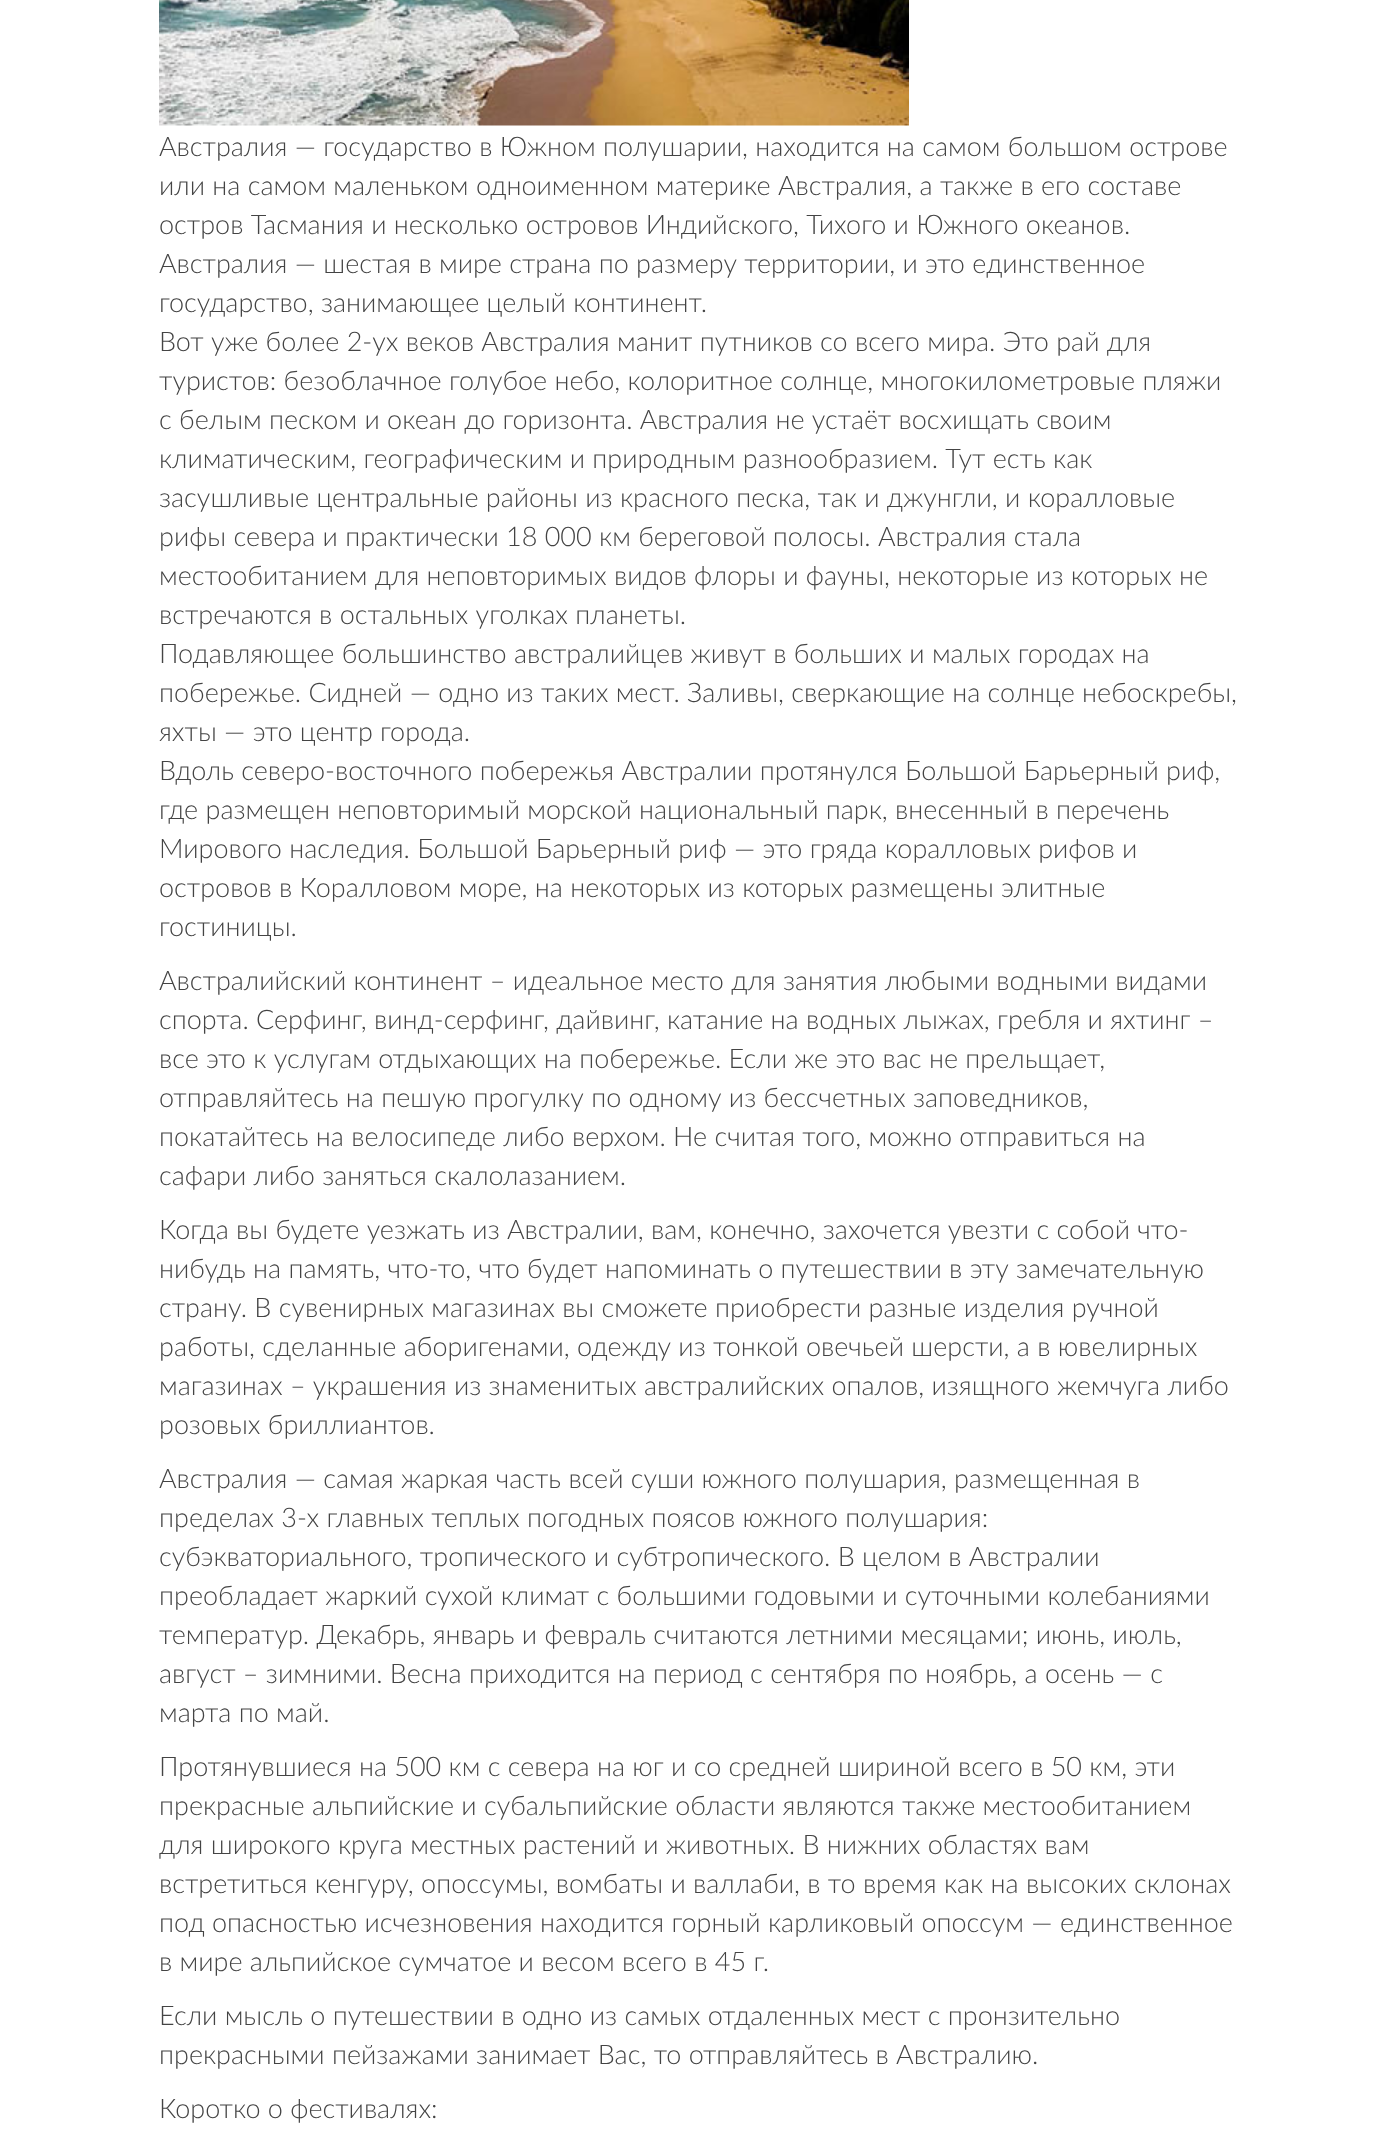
<svg xmlns="http://www.w3.org/2000/svg" width="1398" height="2135">
	<rect width="100%" height="100%" fill="#FFFFFF" />
	<image x="159" y="0" width="750" height="126" href="assets/img1.png" />
	<g font-family="Lato" font-size="27" font-weight="300" fill="#444444">
		<text x="159" y="156">Австралия — государство в Южном полушарии, находится на самом большом острове</text>
		<text x="159" y="195">или на самом маленьком одноименном материке Австралия, а также в его составе</text>
		<text x="159" y="234">остров Тасмания и несколько островов Индийского, Тихого и Южного океанов.</text>
		<text x="159" y="273">Австралия — шестая в мире страна по размеру территории, и это единственное</text>
		<text x="159" y="312">государство, занимающее целый континент.</text>
		<text x="159" y="351">Вот уже более 2-ух веков Австралия манит путников со всего мира. Это рай для</text>
		<text x="159" y="390">туристов: безоблачное голубое небо, колоритное солнце, многокилометровые пляжи</text>
		<text x="159" y="429">с белым песком и океан до горизонта. Австралия не устаёт восхищать своим</text>
		<text x="159" y="468">климатическим, географическим и природным разнообразием. Тут есть как</text>
		<text x="159" y="507">засушливые центральные районы из красного песка, так и джунгли, и коралловые</text>
		<text x="159" y="546">рифы севера и практически 18 000 км береговой полосы. Австралия стала</text>
		<text x="159" y="585">местообитанием для неповторимых видов флоры и фауны, некоторые из которых не</text>
		<text x="159" y="624">встречаются в остальных уголках планеты.</text>
		<text x="159" y="663">Подавляющее большинство австралийцев живут в больших и малых городах на</text>
		<text x="159" y="702">побережье. Сидней — одно из таких мест. Заливы, сверкающие на солнце небоскребы,</text>
		<text x="159" y="741">яхты — это центр города.</text>
		<text x="159" y="780">Вдоль северо-восточного побережья Австралии протянулся Большой Барьерный риф,</text>
		<text x="159" y="819">где размещен неповторимый морской национальный парк, внесенный в перечень</text>
		<text x="159" y="858">Мирового наследия. Большой Барьерный риф — это гряда коралловых рифов и</text>
		<text x="159" y="897">островов в Коралловом море, на некоторых из которых размещены элитные</text>
		<text x="159" y="936">гостиницы.</text>
		<text x="159" y="990">Австралийский континент – идеальное место для занятия любыми водными видами</text>
		<text x="159" y="1029">спорта. Серфинг, винд-серфинг, дайвинг, катание на водных лыжах, гребля и яхтинг –</text>
		<text x="159" y="1068">все это к услугам отдыхающих на побережье. Если же это вас не прельщает,</text>
		<text x="159" y="1107">отправляйтесь на пешую прогулку по одному из бессчетных заповедников,</text>
		<text x="159" y="1146">покатайтесь на велосипеде либо верхом. Не считая того, можно отправиться на</text>
		<text x="159" y="1185">сафари либо заняться скалолазанием.</text>
		<text x="159" y="1239">Когда вы будете уезжать из Австралии, вам, конечно, захочется увезти с собой что-</text>
		<text x="159" y="1278">нибудь на память, что-то, что будет напоминать о путешествии в эту замечательную</text>
		<text x="159" y="1317">страну. В сувенирных магазинах вы сможете приобрести разные изделия ручной</text>
		<text x="159" y="1356">работы, сделанные аборигенами, одежду из тонкой овечьей шерсти, а в ювелирных</text>
		<text x="159" y="1395">магазинах – украшения из знаменитых австралийских опалов, изящного жемчуга либо</text>
		<text x="159" y="1434">розовых бриллиантов.</text>
		<text x="159" y="1488">Австралия — самая жаркая часть всей суши южного полушария, размещенная в</text>
		<text x="159" y="1527">пределах 3-х главных теплых погодных поясов южного полушария:</text>
		<text x="159" y="1566">субэкваториального, тропического и субтропического. В целом в Австралии</text>
		<text x="159" y="1605">преобладает жаркий сухой климат с большими годовыми и суточными колебаниями</text>
		<text x="159" y="1644">температур. Декабрь, январь и февраль считаются летними месяцами; июнь, июль,</text>
		<text x="159" y="1683">август – зимними. Весна приходится на период с сентября по ноябрь, а осень — с</text>
		<text x="159" y="1722">марта по май.</text>
		<text x="159" y="1776">Протянувшиеся на 500 км с севера на юг и со средней шириной всего в 50 км, эти</text>
		<text x="159" y="1815">прекрасные альпийские и субальпийские области являются также местообитанием</text>
		<text x="159" y="1854">для широкого круга местных растений и животных. В нижних областях вам</text>
		<text x="159" y="1893">встретиться кенгуру, опоссумы, вомбаты и валлаби, в то время как на высоких склонах</text>
		<text x="159" y="1932">под опасностью исчезновения находится горный карликовый опоссум — единственное</text>
		<text x="159" y="1971">в мире альпийское сумчатое и весом всего в 45 г.</text>
		<text x="159" y="2025">Если мысль о путешествии в одно из самых отдаленных мест с пронзительно</text>
		<text x="159" y="2064">прекрасными пейзажами занимает Вас, то отправляйтесь в Австралию.</text>
		<text x="159" y="2118">Коротко о фестивалях:</text>
	</g>
</svg>
